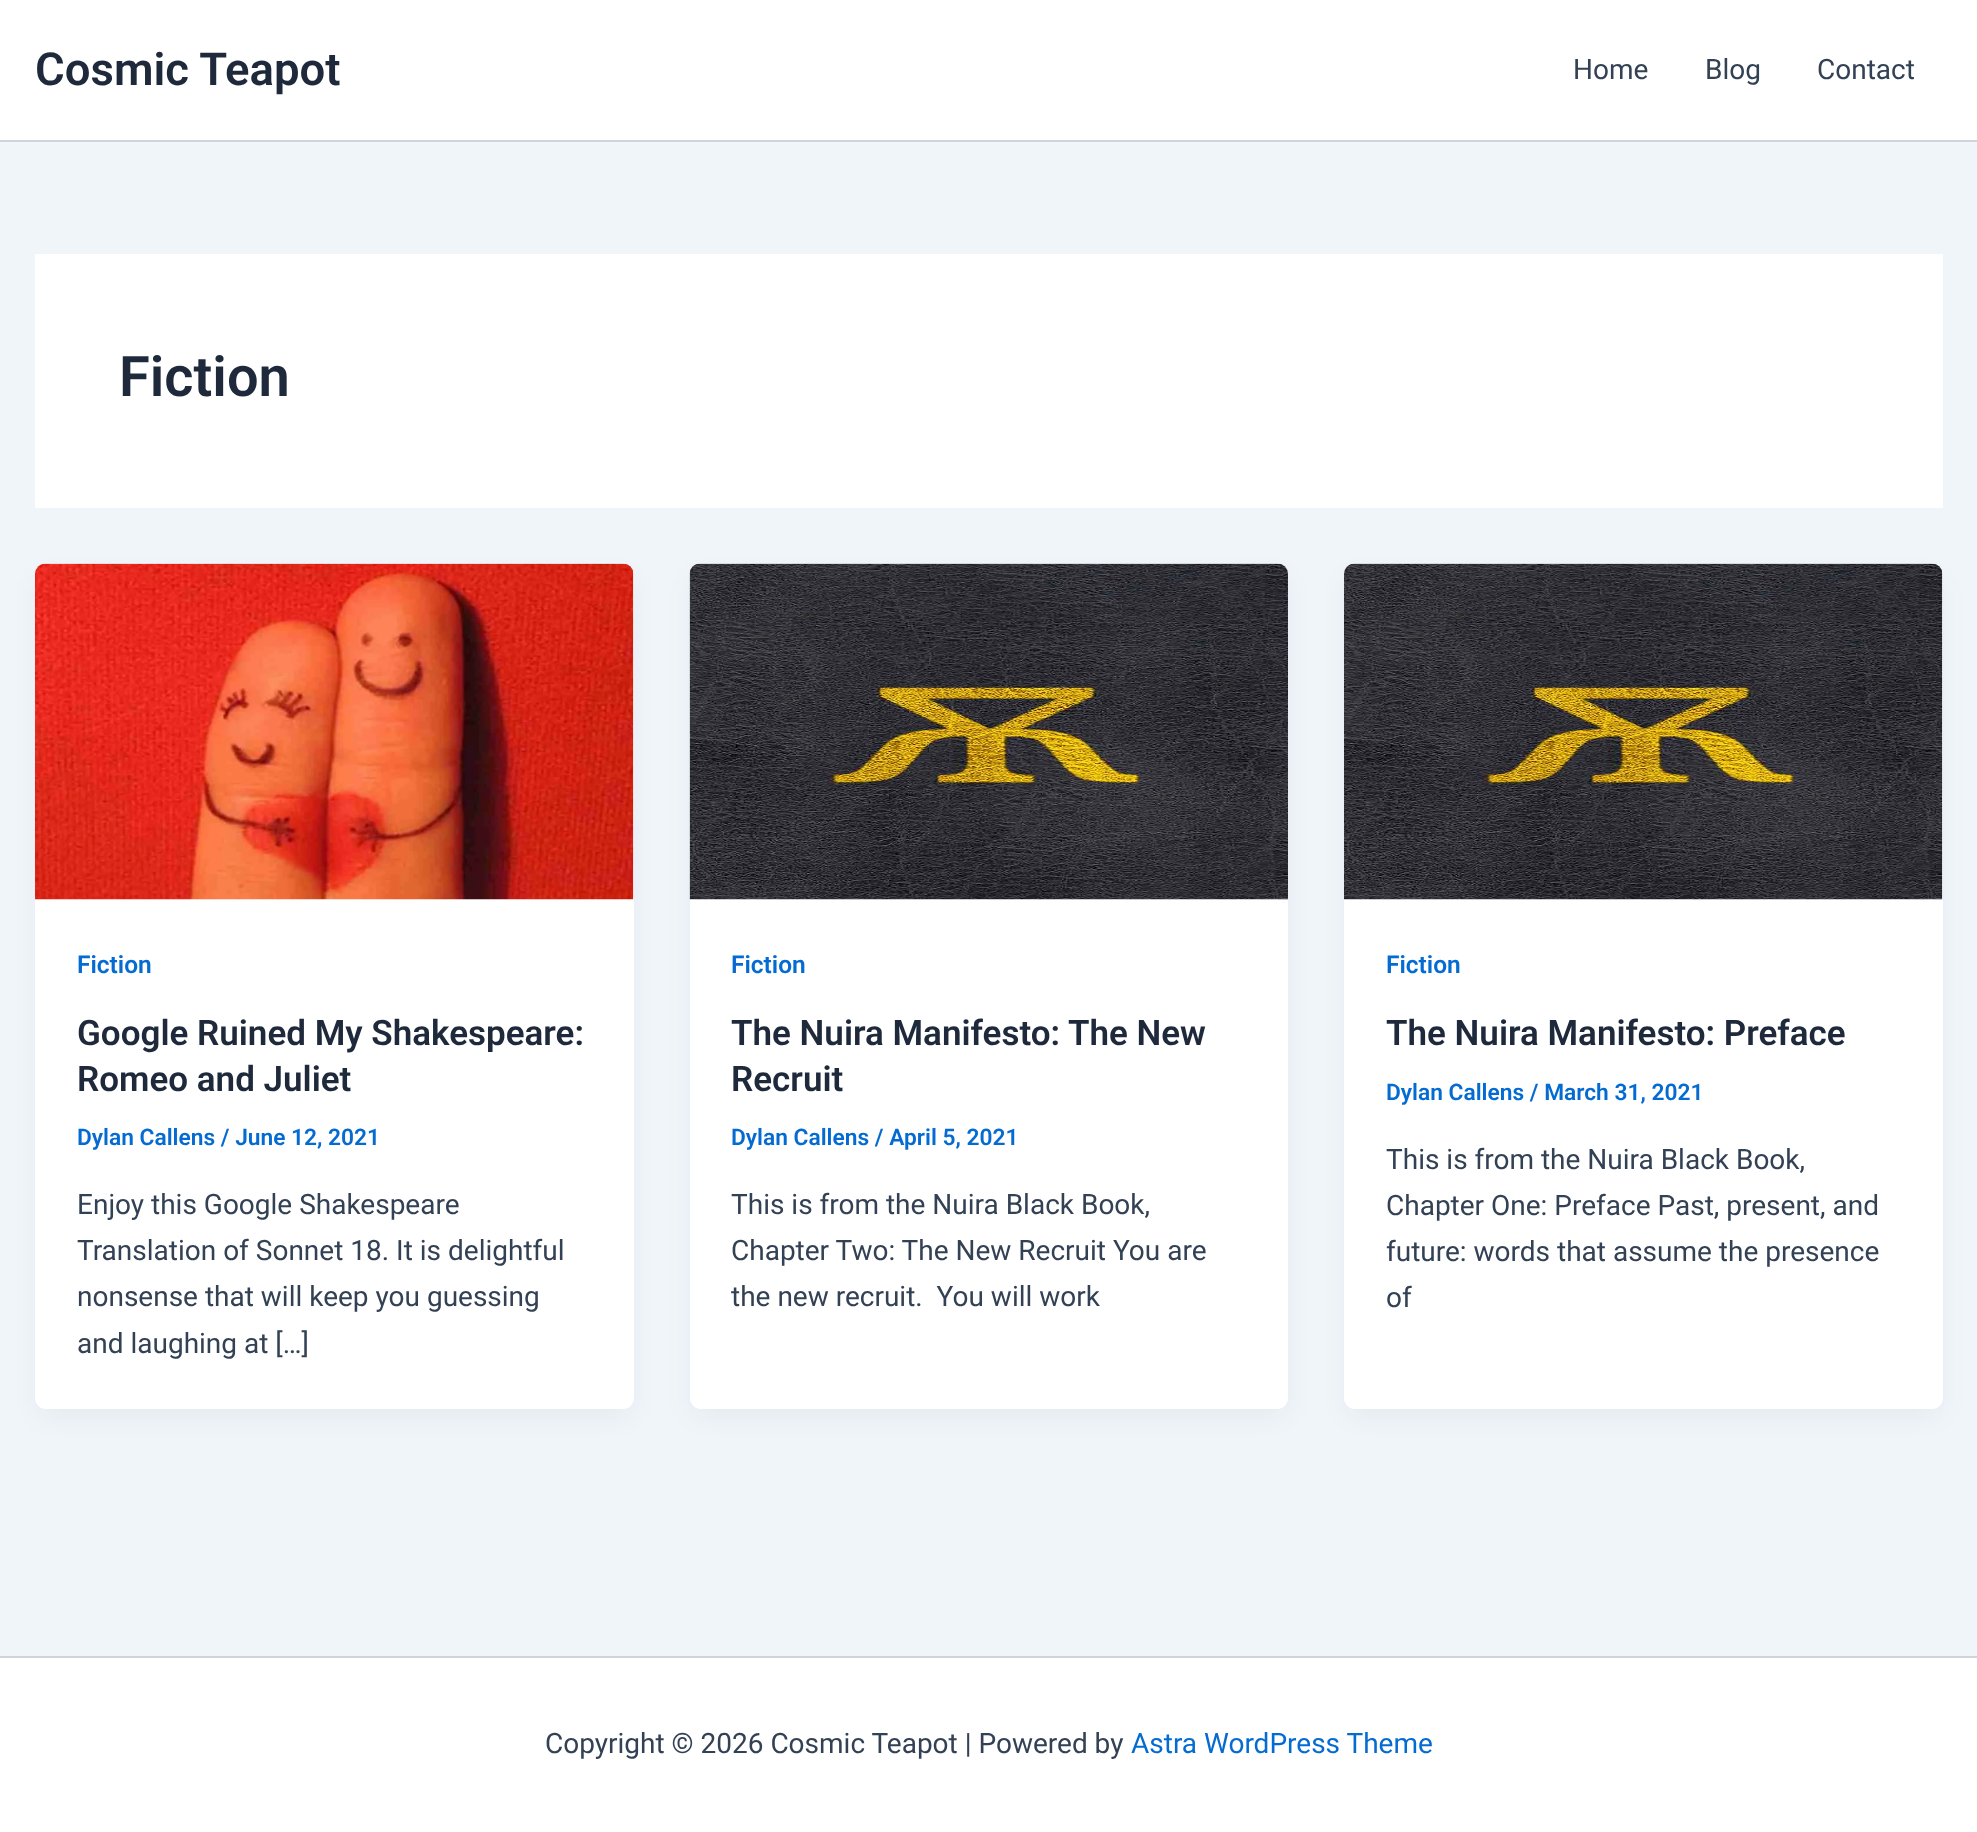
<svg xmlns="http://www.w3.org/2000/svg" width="1977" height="1832">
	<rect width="100%" height="100%" fill="#F0F5FA" />
	<rect x="0" y="0" width="1977" height="140" fill="#FFFFFF" />
	<rect x="0" y="140" width="1977" height="2" fill="#D1D5DB" />
	<text x="35" y="85" font-family="Roboto" font-size="45.5" font-weight="600" fill="#1E293B">Cosmic Teapot</text>
	<g font-family="Roboto" font-size="28" fill="#334155">
		<text x="1573" y="79">Home</text>
		<text x="1705" y="79">Blog</text>
		<text x="1817" y="79">Contact</text>
	</g>
	<rect x="35" y="254" width="1908" height="254" fill="#FFFFFF" />
	<text x="119" y="396" font-family="Roboto" font-size="56" font-weight="600" fill="#1E293B">Fiction</text>
	<rect x="39" y="578" width="591" height="838" rx="7" fill="#101828" fill-opacity="0.05" filter="blur(13px)" />
	<rect x="35" y="564" width="599" height="845" rx="11" fill="#FFFFFF" />
	<image x="35" y="563" width="599" height="337" href="assets/img1.png" />
	<text x="77" y="973" font-family="Roboto" font-size="24.5" font-weight="600" fill="#046BD2">Fiction</text>
	<g font-family="Roboto" font-size="35" font-weight="600" fill="#1E293B">
		<text x="77" y="1045">Google Ruined My Shakespeare:</text>
		<text x="77" y="1091">Romeo and Juliet</text>
	</g>
	<text x="77" y="1145" font-family="Roboto" font-size="22.75" font-weight="600" fill="#046BD2">Dylan Callens / June 12, 2021</text>
	<g font-family="Roboto" font-size="28" fill="#334155">
		<text x="77" y="1214">Enjoy this Google Shakespeare</text>
		<text x="77" y="1260">Translation of Sonnet 18. It is delightful</text>
		<text x="77" y="1306">nonsense that will keep you guessing</text>
		<text x="77" y="1353">and laughing at […]</text>
	</g>
	<rect x="693" y="578" width="592" height="838" rx="7" fill="#101828" fill-opacity="0.05" filter="blur(13px)" />
	<rect x="690" y="564" width="598" height="845" rx="11" fill="#FFFFFF" />
	<image x="689" y="563" width="599" height="337" href="assets/img2.png" />
	<text x="731" y="973" font-family="Roboto" font-size="24.5" font-weight="600" fill="#046BD2">Fiction</text>
	<g font-family="Roboto" font-size="35" font-weight="600" fill="#1E293B">
		<text x="731" y="1045">The Nuira Manifesto: The New</text>
		<text x="731" y="1091">Recruit</text>
	</g>
	<text x="731" y="1145" font-family="Roboto" font-size="22.75" font-weight="600" fill="#046BD2">Dylan Callens / April 5, 2021</text>
	<g font-family="Roboto" font-size="28" fill="#334155">
		<text x="731" y="1214">This is from the Nuira Black Book,</text>
		<text x="731" y="1260">Chapter Two: The New Recruit You are</text>
		<text x="731" y="1306" xml:space="preserve">the new recruit.  You will work</text>
	</g>
	<rect x="1348" y="578" width="591" height="838" rx="7" fill="#101828" fill-opacity="0.05" filter="blur(13px)" />
	<rect x="1344" y="564" width="599" height="845" rx="11" fill="#FFFFFF" />
	<image x="1344" y="563" width="599" height="337" href="assets/img3.png" />
	<text x="1386" y="973" font-family="Roboto" font-size="24.5" font-weight="600" fill="#046BD2">Fiction</text>
	<text x="1386" y="1045" font-family="Roboto" font-size="35" font-weight="600" fill="#1E293B">The Nuira Manifesto: Preface</text>
	<text x="1386" y="1100" font-family="Roboto" font-size="22.75" font-weight="600" fill="#046BD2">Dylan Callens / March 31, 2021</text>
	<g font-family="Roboto" font-size="28" fill="#334155">
		<text x="1386" y="1169">This is from the Nuira Black Book,</text>
		<text x="1386" y="1215">Chapter One: Preface Past, present, and</text>
		<text x="1386" y="1261">future: words that assume the presence</text>
		<text x="1386" y="1307">of</text>
	</g>
	<rect x="0" y="1658" width="1977" height="174" fill="#FFFFFF" />
	<rect x="0" y="1656" width="1977" height="2" fill="#D1D5DB" />
	<text x="545" y="1753" font-family="Roboto" font-size="28" fill="#334155">Copyright © 2026 Cosmic Teapot | Powered by</text>
	<text x="1131" y="1753" font-family="Roboto" font-size="28" fill="#046BD2">Astra WordPress Theme</text>
</svg>
